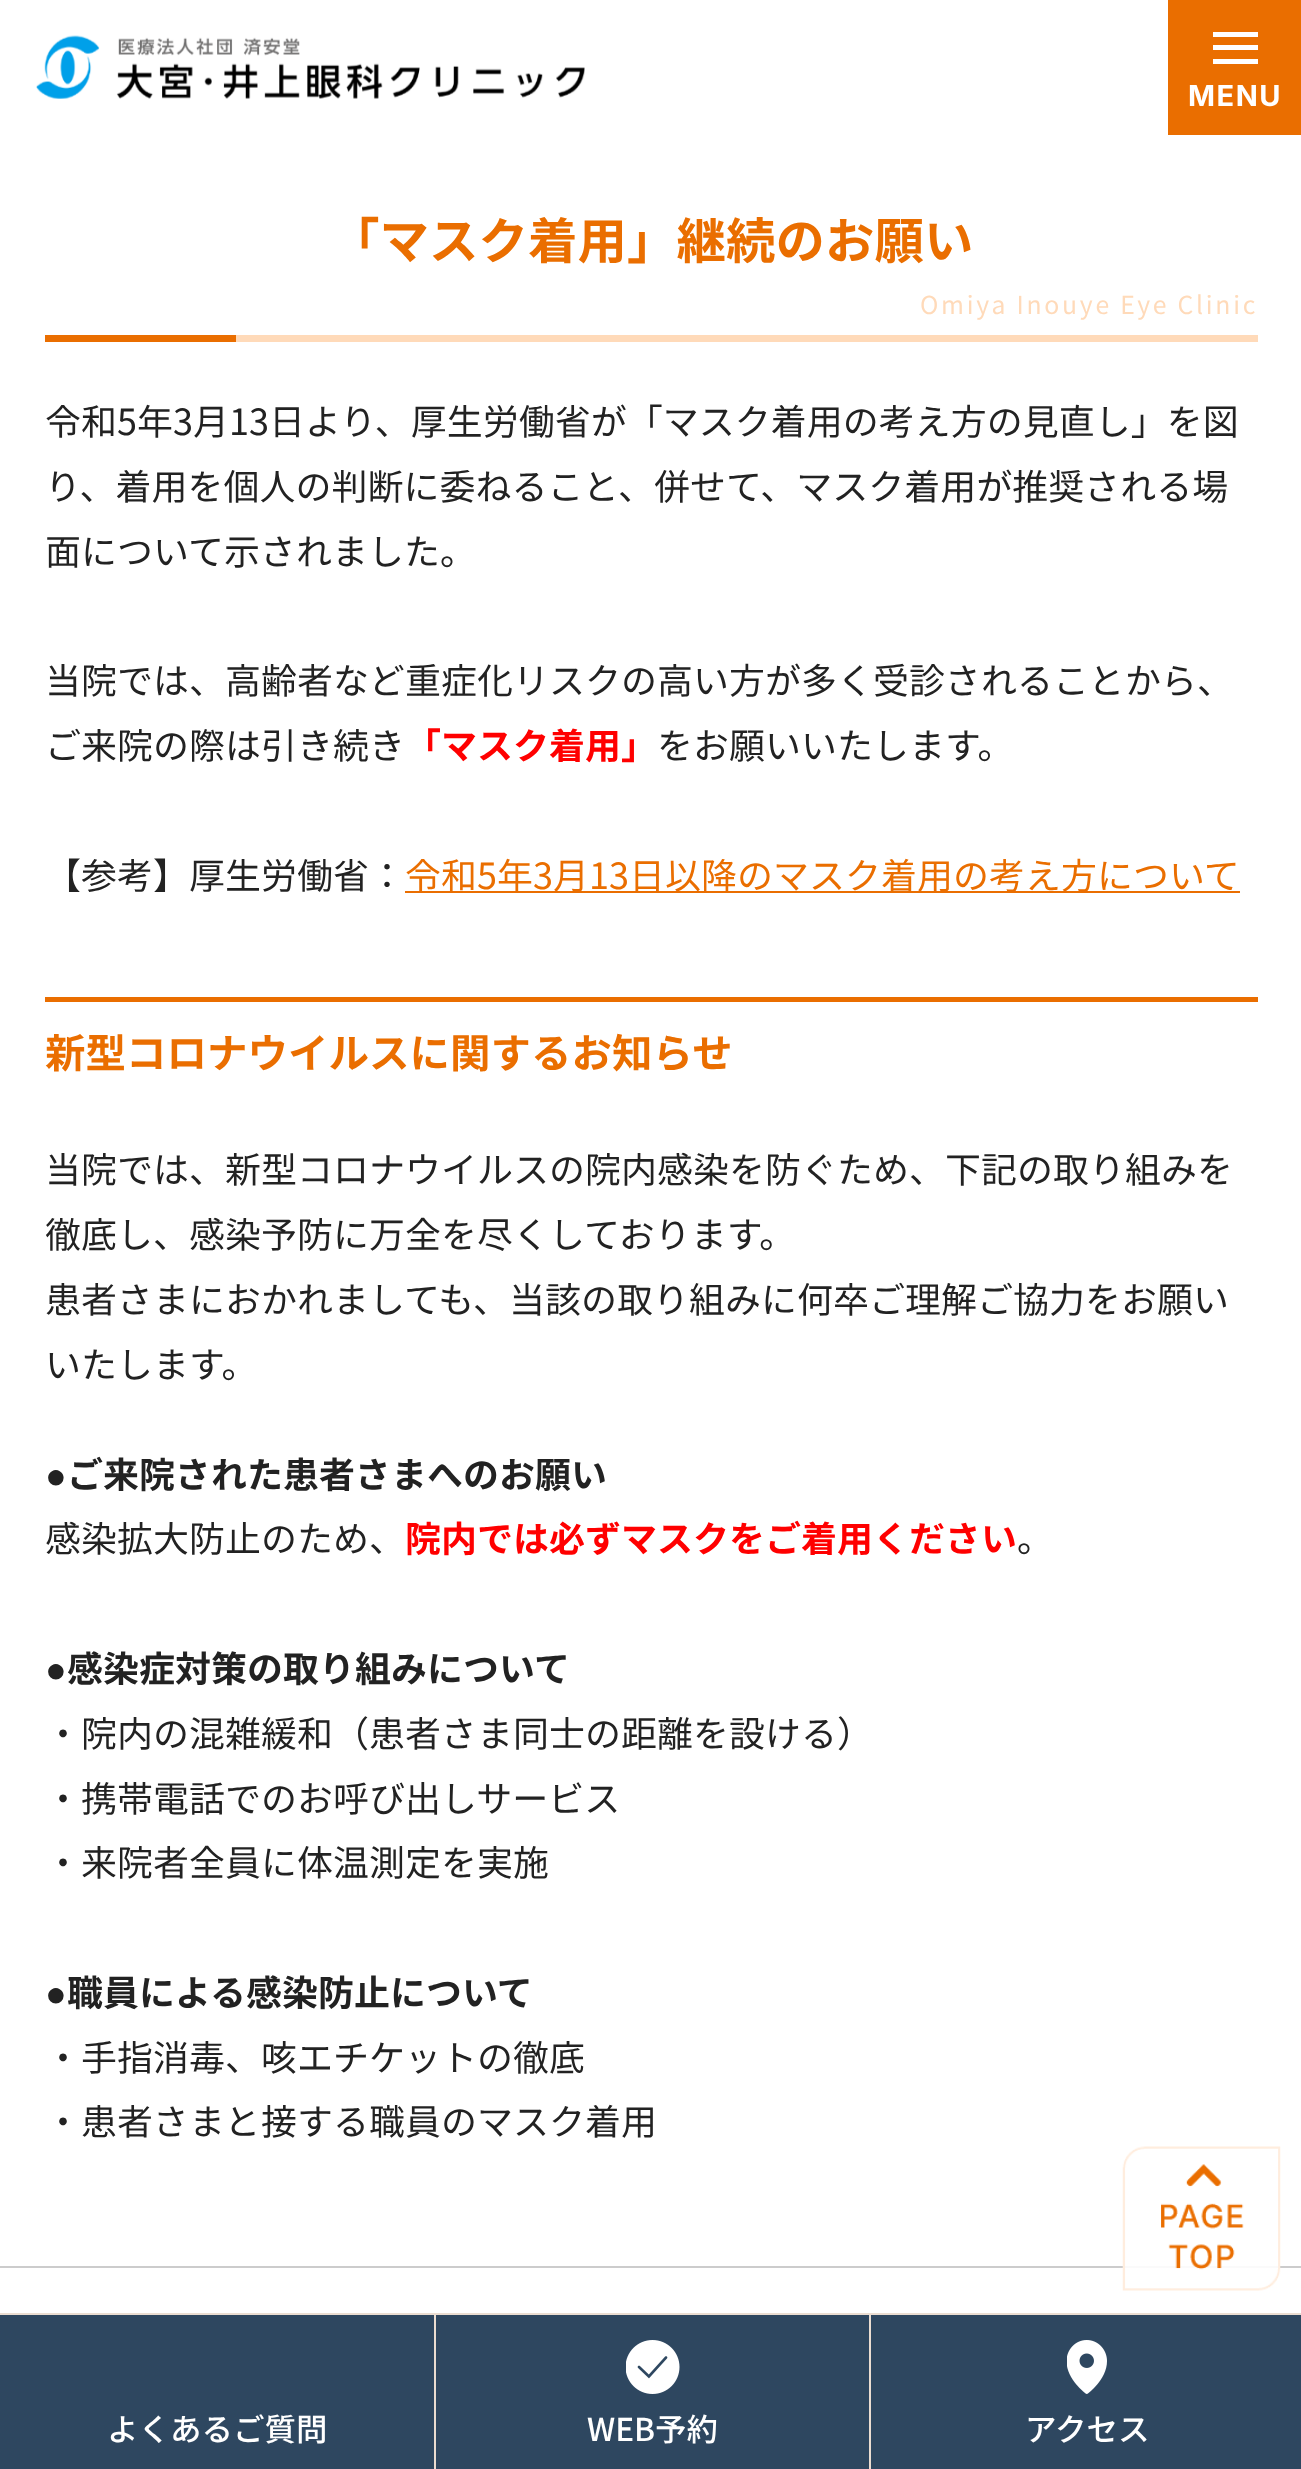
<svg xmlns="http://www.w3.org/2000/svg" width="1301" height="2469">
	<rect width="100%" height="100%" fill="#FFFFFF" />
	<image x="36" y="35" width="549" height="64" href="assets/img1.png" />
	<rect x="1168" y="0" width="133" height="135" fill="#EA6E00" />
	<rect x="1213" y="32" width="45" height="5" fill="#FFFFFF" />
	<rect x="1213" y="45" width="45" height="5" fill="#FFFFFF" />
	<rect x="1213" y="59" width="45" height="5" fill="#FFFFFF" />
	<text x="1188" y="106" font-family="Inter" font-size="29" font-weight="700" letter-spacing="1.5" fill="#FFFFFF">MENU</text>
	<rect x="236" y="335" width="1022" height="7" fill="#FFDAB9" />
	<text x="330" y="259" font-family="Noto Sans JP" font-size="49.5" font-weight="700" fill="#EA6E00">「マスク着用」継続のお願い</text>
	<text x="920" y="314" font-family="Noto Sans JP" font-size="24.75" letter-spacing="2.75" fill="#FFDAB9">Omiya Inouye Eye Clinic</text>
	<rect x="45" y="335" width="191" height="7" fill="#EA6E00" />
	<g font-family="Noto Sans JP" font-size="36" fill="#222222">
		<text x="45" y="435">令和5年3月13日より、厚生労働省が「マスク着用の考え方の見直し」を図</text>
		<text x="45" y="500">り、着用を個人の判断に委ねること、併せて、マスク着用が推奨される場</text>
		<text x="45" y="565">面について示されました。</text>
		<text x="45" y="694">当院では、高齢者など重症化リスクの高い方が多く受診されることから、</text>
		<text x="45" y="759">ご来院の際は引き続き</text>
	</g>
	<text x="405" y="759" font-family="Noto Sans JP" font-size="36" font-weight="700" fill="#FF0000">「マスク着用」</text>
	<g font-family="Noto Sans JP" font-size="36" fill="#222222">
		<text x="657" y="759">をお願いいたします。</text>
		<text x="45" y="889">【参考】厚生労働省：</text>
	</g>
	<rect x="405" y="891" width="835" height="2" fill="#EA6E00" />
	<text x="405" y="889" font-family="Noto Sans JP" font-size="36" fill="#EA6E00">令和5年3月13日以降のマスク着用の考え方について</text>
	<rect x="45" y="997" width="1213" height="5" fill="#EA6E00" />
	<text x="45" y="1068" font-family="Noto Sans JP" font-size="40.5" font-weight="700" fill="#EA6E00">新型コロナウイルスに関するお知らせ</text>
	<g font-family="Noto Sans JP" font-size="36" fill="#222222">
		<text x="45" y="1183">当院では、新型コロナウイルスの院内感染を防ぐため、下記の取り組みを</text>
		<text x="45" y="1248">徹底し、感染予防に万全を尽くしております。</text>
		<text x="45" y="1313">患者さまにおかれましても、当該の取り組みに何卒ご理解ご協力をお願い</text>
		<text x="45" y="1378">いたします。</text>
	</g>
	<text x="45" y="1488" font-family="Liberation Sans" font-size="36" font-weight="700" fill="#222222">●</text>
	<text x="67" y="1488" font-family="Noto Sans JP" font-size="36" font-weight="700" fill="#222222">ご来院された患者さまへのお願い</text>
	<text x="45" y="1552" font-family="Noto Sans JP" font-size="36" fill="#222222">感染拡大防止のため、</text>
	<text x="405" y="1552" font-family="Noto Sans JP" font-size="36" font-weight="700" fill="#FF0000">院内では必ずマスクをご着用ください</text>
	<text x="1017" y="1552" font-family="Noto Sans JP" font-size="36" fill="#222222">。</text>
	<text x="45" y="1682" font-family="Liberation Sans" font-size="36" font-weight="700" fill="#222222">●</text>
	<text x="67" y="1682" font-family="Noto Sans JP" font-size="36" font-weight="700" fill="#222222">感染症対策の取り組みについて</text>
	<g font-family="Noto Sans JP" font-size="36" fill="#222222">
		<text x="45" y="1747">・院内の混雑緩和（患者さま同士の距離を設ける）</text>
		<text x="45" y="1812">・携帯電話でのお呼び出しサービス</text>
		<text x="45" y="1876">・来院者全員に体温測定を実施</text>
	</g>
	<text x="45" y="2006" font-family="Liberation Sans" font-size="36" font-weight="700" fill="#222222">●</text>
	<text x="67" y="2006" font-family="Noto Sans JP" font-size="36" font-weight="700" fill="#222222">職員による感染防止について</text>
	<g font-family="Noto Sans JP" font-size="36" fill="#222222">
		<text x="45" y="2071">・手指消毒、咳エチケットの徹底</text>
		<text x="45" y="2135">・患者さまと接する職員のマスク着用</text>
	</g>
	<rect x="0" y="2266" width="1301" height="2" fill="#CCCCCC" />
	<image x="1122" y="2146" width="159" height="145" href="assets/img2.png" />
	<rect x="0" y="2315" width="434" height="154" fill="#2E4760" />
	<rect x="0" y="2313" width="1301" height="2" fill="#EBDDD1" />
	<text x="107" y="2441" font-family="Noto Sans JP" font-size="31.5" font-weight="500" fill="#FFFFFF">よくあるご質問</text>
	<rect x="436" y="2315" width="433" height="154" fill="#2E4760" />
	<image x="626" y="2340" width="54" height="54" href="assets/img3.png" />
	<rect x="434" y="2313" width="2" height="156" fill="#EBDDD1" />
	<text x="587" y="2441" font-family="Noto Sans JP" font-size="31.5" font-weight="500" fill="#FFFFFF">WEB予約</text>
	<rect x="871" y="2315" width="430" height="154" fill="#2E4760" />
	<image x="1067" y="2340" width="40" height="54" href="assets/img4.png" />
	<rect x="869" y="2313" width="2" height="156" fill="#EBDDD1" />
	<text x="1025" y="2441" font-family="Noto Sans JP" font-size="31.5" font-weight="500" fill="#FFFFFF">アクセス</text>
</svg>
